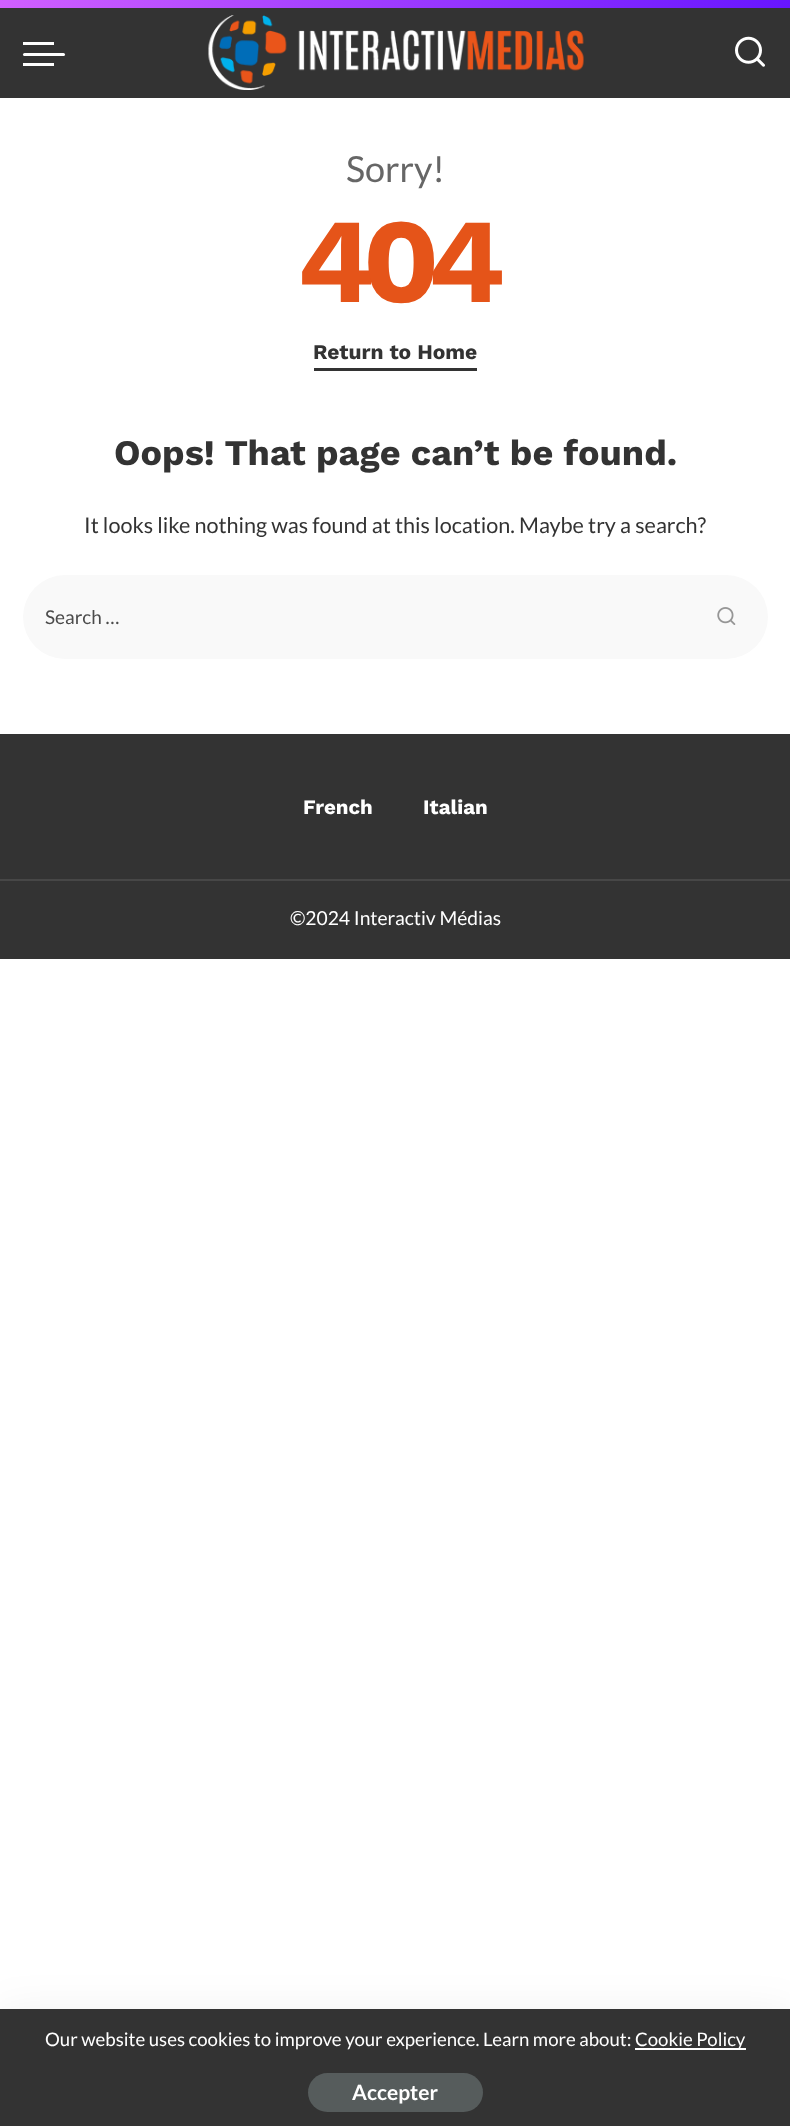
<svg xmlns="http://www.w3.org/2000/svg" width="790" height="2126">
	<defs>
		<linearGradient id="g1" gradientUnits="userSpaceOnUse" x1="0" y1="3.8" x2="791" y2="3.7"><stop offset="0" stop-color="#D260FF" /><stop offset="1" stop-color="#6715FF" /></linearGradient>
	</defs>
	<rect width="100%" height="100%" fill="#FFFFFF" />
	<rect x="0" y="0" width="790" height="8" fill="url(#g1)" />
	<rect x="0" y="8" width="790" height="90" fill="#333333" />
	<rect x="23" y="53" width="42" height="3" rx="1.5" fill="#FFFFFF" />
	<rect x="23" y="42" width="31" height="3" fill="#FFFFFF" />
	<rect x="23" y="63" width="31" height="3" fill="#FFFFFF" />
	<image x="208" y="15" width="376" height="75" href="assets/img1.png" />
	<image x="735" y="36" width="30" height="31" href="assets/img2.png" />
	<text x="346" y="182" font-family="Lato" font-size="36" fill="#666666">Sorry!</text>
	<text x="297" y="302" font-family="Work Sans" font-size="120" font-weight="700" letter-spacing="-12" fill="#E55419">404</text>
	<rect x="314" y="368" width="163" height="3" fill="#333333" />
	<text x="313" y="359" font-family="Work Sans" font-size="21" font-weight="700" fill="#333333">Return to Home</text>
	<text x="114" y="465" font-family="Work Sans" font-size="36" font-weight="700" fill="#333333">Oops! That page can’t be found.</text>
	<text x="84" y="533" font-family="Lato" font-size="21.6" fill="#333333">It looks like nothing was found at this location. Maybe try a search?</text>
	<rect x="23" y="575" width="745" height="84" rx="42" fill="#F9F9F9" />
	<text x="45" y="624" font-family="Lato" font-size="19" fill="#4B4B4B">Search …</text>
	<image x="717" y="607" width="19" height="18" href="assets/img3.png" />
	<rect x="0" y="734" width="790" height="225" fill="#333333" />
	<g font-family="Work Sans" font-size="20.5" font-weight="700" fill="#FFFFFF">
		<text x="303" y="814">French</text>
		<text x="423" y="814">Italian</text>
	</g>
	<rect x="0" y="879" width="790" height="2" fill="#474747" />
	<text x="290" y="925" font-family="Lato" font-size="19.25" fill="#FFFFFF">©2024 Interactiv Médias</text>
	<rect x="0" y="2015" width="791" height="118" fill="#000000" fill-opacity="0.07" filter="blur(22.5px)" />
	<rect x="0" y="2009" width="790" height="117" fill="#333333" />
	<text x="45" y="2046" font-family="Lato" font-size="18.6" fill="#FFFFFF">Our website uses cookies to improve your experience. Learn more about:</text>
	<rect x="635" y="2048" width="111" height="2" fill="#FFFFFF" />
	<text x="635" y="2046" font-family="Lato" font-size="18.6" fill="#FFFFFF">Cookie Policy</text>
	<rect x="308" y="2073" width="175" height="39" rx="19.5" fill="#565C5C" />
	<text x="352" y="2100" font-family="Lato" font-size="21" font-weight="700" fill="#FFFFFF">Accepter</text>
</svg>
